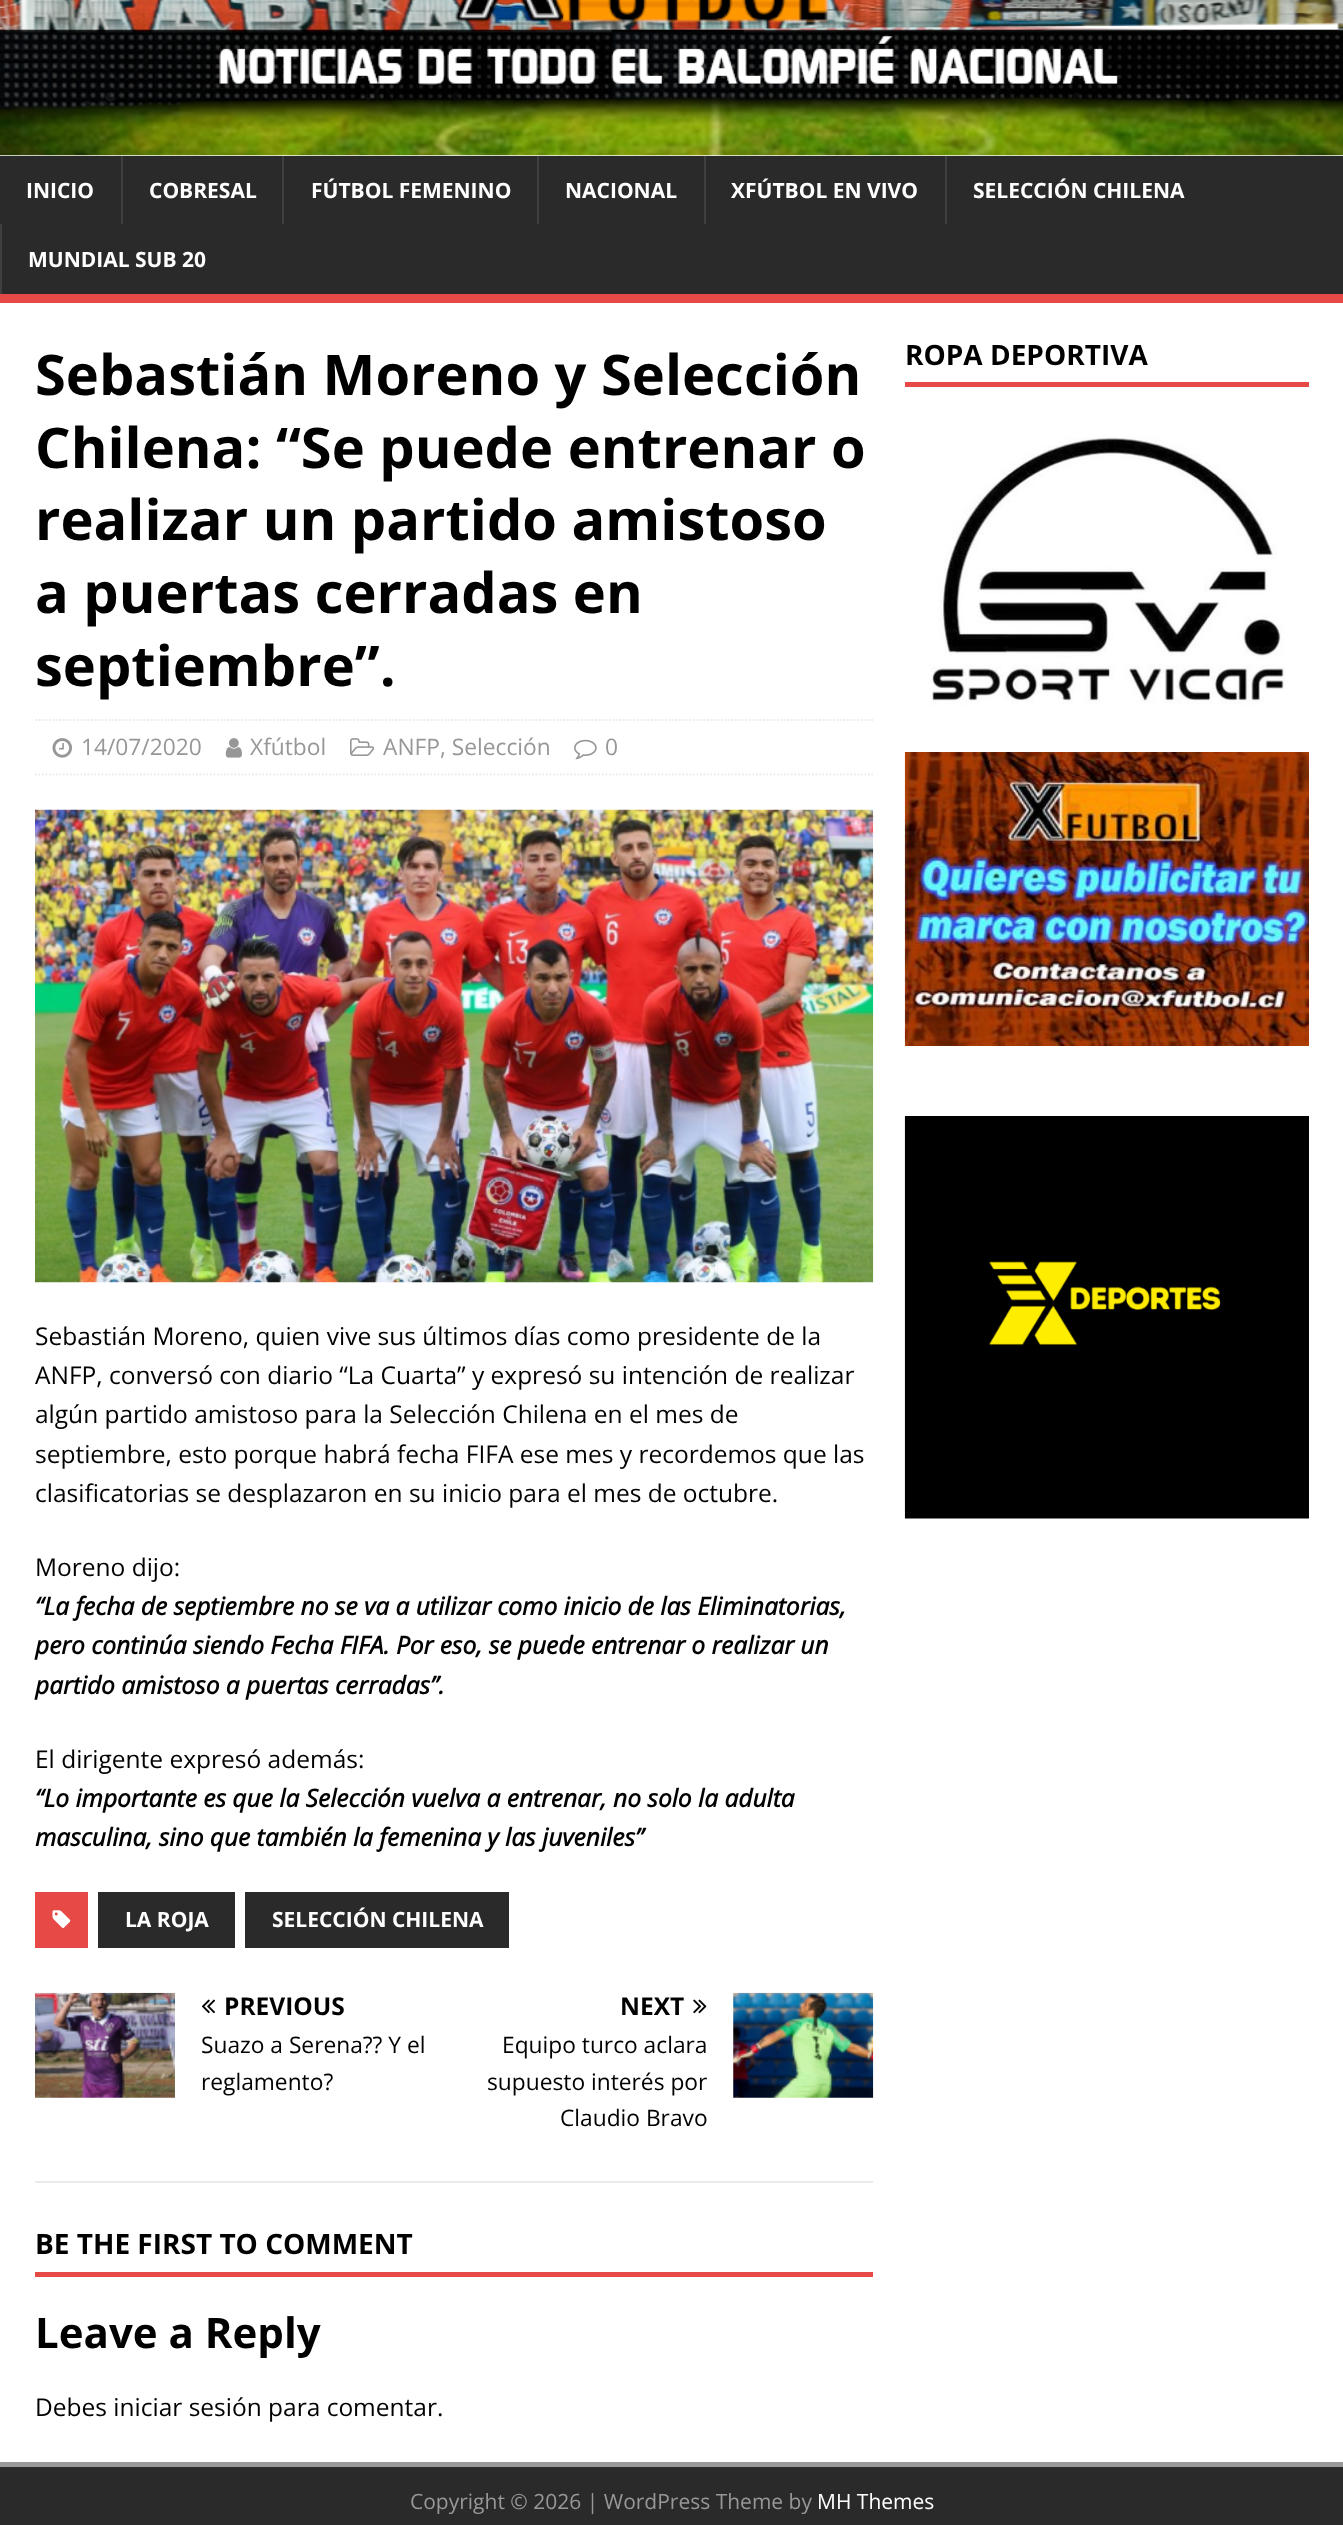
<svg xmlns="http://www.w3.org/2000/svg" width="1343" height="2525">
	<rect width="100%" height="100%" fill="#FFFFFF" />
	<image x="0" y="0" width="1343" height="156" href="assets/img1.png" />
	<rect x="0" y="156" width="1343" height="138" fill="#2A2A2A" />
	<rect x="0" y="294" width="1343" height="9" fill="#E64946" />
	<text x="26" y="198" font-family="Open Sans" font-size="21" font-weight="700" fill="#FFFFFF">INICIO</text>
	<rect x="121" y="156" width="2" height="68" fill="#3F3F3F" />
	<text x="149" y="198" font-family="Open Sans" font-size="21" font-weight="700" fill="#FFFFFF">COBRESAL</text>
	<rect x="282" y="156" width="2" height="68" fill="#3F3F3F" />
	<text x="311" y="198" font-family="Open Sans" font-size="21" font-weight="700" fill="#FFFFFF">FÚTBOL FEMENINO</text>
	<rect x="537" y="156" width="2" height="68" fill="#3F3F3F" />
	<text x="565" y="198" font-family="Open Sans" font-size="21" font-weight="700" fill="#FFFFFF">NACIONAL</text>
	<rect x="704" y="156" width="2" height="68" fill="#3F3F3F" />
	<text x="731" y="198" font-family="Open Sans" font-size="21" font-weight="700" fill="#FFFFFF">XFÚTBOL EN VIVO</text>
	<rect x="945" y="156" width="2" height="68" fill="#3F3F3F" />
	<text x="973" y="198" font-family="Open Sans" font-size="21" font-weight="700" fill="#FFFFFF">SELECCIÓN CHILENA</text>
	<rect x="0" y="224" width="2" height="70" fill="#3F3F3F" />
	<text x="28" y="267" font-family="Open Sans" font-size="21" font-weight="700" fill="#FFFFFF">MUNDIAL SUB 20</text>
	<g font-family="Open Sans" font-size="56" font-weight="700" fill="#000000">
		<text x="35" y="395">Sebastián Moreno y Selección</text>
		<text x="35" y="468">Chilena: “Se puede entrenar o</text>
		<text x="35" y="540">realizar un partido amistoso</text>
		<text x="35" y="613">a puertas cerradas en</text>
		<text x="35" y="686">septiembre”.</text>
	</g>
	<path d="M35 720H873" fill="none" stroke="#EBEBEB" stroke-width="1.8" stroke-dasharray="1.75 1.75" />
	<path d="M35 774.5H873" fill="none" stroke="#EBEBEB" stroke-width="1.8" stroke-dasharray="1.75 1.75" />
	<image x="52" y="738" width="20" height="20" href="assets/img2.png" />
	<text x="81" y="755" font-family="Open Sans" font-size="22.75" fill="#979797">14/07/2020</text>
	<image x="225" y="738" width="17" height="20" href="assets/img3.png" />
	<text x="250" y="755" font-family="Open Sans" font-size="22.75" fill="#979797">Xfútbol</text>
	<image x="350" y="738" width="25" height="18" href="assets/img4.png" />
	<text x="383" y="755" font-family="Open Sans" font-size="22.75" fill="#979797">ANFP, Selección</text>
	<image x="574" y="739" width="23" height="21" href="assets/img5.png" />
	<text x="605" y="755" font-family="Open Sans" font-size="22.75" fill="#979797">0</text>
	<image x="35" y="809" width="839" height="474" href="assets/img6.png" />
	<g font-family="Open Sans" font-size="24.5" fill="#000000">
		<text x="35" y="1345">Sebastián Moreno, quien vive sus últimos días como presidente de la</text>
		<text x="35" y="1384">ANFP, conversó con diario “La Cuarta” y expresó su intención de realizar</text>
		<text x="35" y="1423">algún partido amistoso para la Selección Chilena en el mes de</text>
		<text x="35" y="1463">septiembre, esto porque habrá fecha FIFA ese mes y recordemos que las</text>
		<text x="35" y="1502">clasificatorias se desplazaron en su inicio para el mes de octubre.</text>
		<text x="35" y="1576">Moreno dijo:</text>
	</g>
	<g font-family="Open Sans" font-size="24.5" font-weight="700" font-style="italic" fill="#000000">
		<text x="35" y="1615">“La fecha de septiembre no se va a utilizar como inicio de las Eliminatorias,</text>
		<text x="35" y="1654">pero continúa siendo Fecha FIFA. Por eso, se puede entrenar o realizar un</text>
		<text x="35" y="1694">partido amistoso a puertas cerradas”.</text>
	</g>
	<text x="35" y="1768" font-family="Open Sans" font-size="24.5" fill="#000000">El dirigente expresó además:</text>
	<g font-family="Open Sans" font-size="24.5" font-weight="700" font-style="italic" fill="#000000">
		<text x="35" y="1807">“Lo importante es que la Selección vuelva a entrenar, no solo la adulta</text>
		<text x="35" y="1846">masculina, sino que también la femenina y las juveniles”</text>
	</g>
	<rect x="35" y="1892" width="53" height="56" fill="#E64946" />
	<image x="52" y="1910" width="19" height="18" href="assets/img7.png" />
	<rect x="98" y="1892" width="137" height="56" fill="#2A2A2A" />
	<text x="125" y="1927" font-family="Open Sans" font-size="21" font-weight="700" fill="#FFFFFF">LA ROJA</text>
	<rect x="245" y="1892" width="264" height="56" fill="#2A2A2A" />
	<text x="272" y="1927" font-family="Open Sans" font-size="21" font-weight="700" fill="#FFFFFF">SELECCIÓN CHILENA</text>
	<rect x="35" y="2181" width="838" height="2" fill="#EBEBEB" />
	<image x="35" y="1992" width="140" height="106" href="assets/img8.png" />
	<image x="201" y="1999" width="14" height="15" href="assets/img9.png" />
	<text x="224" y="2015" font-family="Open Sans" font-size="24.5" font-weight="700" fill="#000000">PREVIOUS</text>
	<g font-family="Open Sans" font-size="22.75" fill="#000000">
		<text x="201" y="2053">Suazo a Serena?? Y el</text>
		<text x="201" y="2090">reglamento?</text>
	</g>
	<text x="620" y="2015" font-family="Open Sans" font-size="24.5" font-weight="700" fill="#000000">NEXT</text>
	<image x="693" y="1999" width="14" height="15" href="assets/img10.png" />
	<image x="733" y="1992" width="141" height="106" href="assets/img11.png" />
	<g font-family="Open Sans" font-size="22.75" fill="#000000">
		<text x="502" y="2053">Equipo turco aclara</text>
		<text x="487" y="2090">supuesto interés por</text>
		<text x="560" y="2126">Claudio Bravo</text>
	</g>
	<rect x="35" y="2272" width="838" height="5" fill="#E64946" />
	<text x="35" y="2254" font-family="Open Sans" font-size="28" font-weight="700" fill="#000000">BE THE FIRST TO COMMENT</text>
	<text x="35" y="2348" font-family="Open Sans" font-size="42" font-weight="700" fill="#000000">Leave a Reply</text>
	<text x="35" y="2416" font-family="Open Sans" font-size="24.5" fill="#000000">Debes iniciar sesión para comentar.</text>
	<rect x="905" y="382" width="404" height="5" fill="#E64946" />
	<text x="905" y="365" font-family="Open Sans" font-size="28" font-weight="700" fill="#000000">ROPA DEPORTIVA</text>
	<image x="930" y="437" width="355" height="268" href="assets/img12.png" />
	<image x="904" y="752" width="405" height="294" href="assets/img13.png" />
	<image x="904" y="1116" width="405" height="403" href="assets/img14.png" />
	<rect x="0" y="2467" width="1343" height="58" fill="#2A2A2A" />
	<rect x="0" y="2462" width="1343" height="5" fill="#999999" />
	<text x="410" y="2509" font-family="Open Sans" font-size="21" fill="#979797">Copyright © 2026 | WordPress Theme by</text>
	<text x="817" y="2509" font-family="Open Sans" font-size="21" fill="#FFFFFF">MH Themes</text>
</svg>
